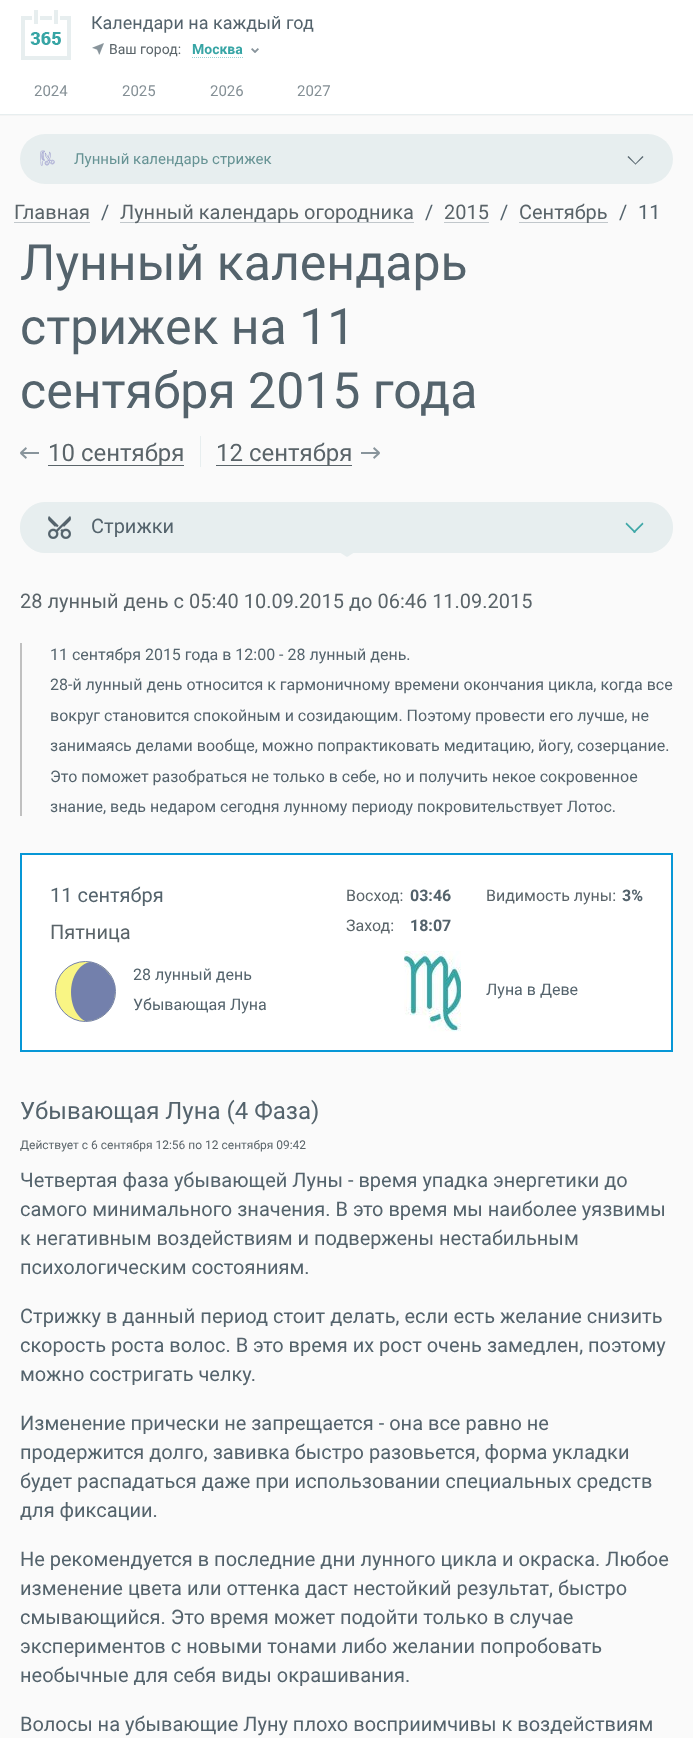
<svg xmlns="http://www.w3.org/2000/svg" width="693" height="1738">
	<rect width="100%" height="100%" fill="#FAFAFA" />
	<rect x="0" y="115" width="693" height="1" fill="#F4F4F4" />
	<rect x="0" y="0" width="693" height="114" fill="#FFFFFF" />
	<rect x="0" y="114" width="693" height="1" fill="#E7EEEF" />
	<image x="21" y="10" width="50" height="50" href="assets/img1.png" />
	<text x="91" y="29" font-family="Roboto" font-size="18" fill="#54636C">Календари на каждый год</text>
	<image x="92" y="43" width="12" height="12" href="assets/img2.png" />
	<text x="109" y="54" font-family="Roboto" font-size="14" fill="#5A6469">Ваш город:</text>
	<path d="M192 57.5H243" fill="none" stroke="#9BD2D2" stroke-dasharray="1 1" />
	<text x="192" y="54" font-family="Roboto" font-size="14" font-weight="700" fill="#37A5A5">Москва</text>
	<image x="251" y="48" width="8" height="5" href="assets/img3.png" />
	<g font-family="Roboto" font-size="15" fill="#848F95">
		<text x="34" y="96">2024</text>
		<text x="122" y="96">2025</text>
		<text x="210" y="96">2026</text>
		<text x="297" y="96">2027</text>
	</g>
	<rect x="20" y="134" width="653" height="50" rx="25" fill="#E7EEEF" />
	<image x="40" y="150" width="15" height="16" href="assets/img4.png" />
	<text x="74" y="164" font-family="Roboto" font-size="15" fill="#669394">Лунный календарь стрижек</text>
	<path d="M642.5 156L643.5 157L635.5 164.5L635 164Z" fill="#54636C" />
	<path d="M628.5 156L636 164L635.5 164.5L627.5 157Z" fill="#54636C" />
	<rect x="14" y="222" width="76" height="1" fill="#C1C7CB" />
	<text x="14" y="219" font-family="Roboto" font-size="20" fill="#5A6469">Главная</text>
	<text x="101" y="219" font-family="Roboto" font-size="20" fill="#54636C">/</text>
	<rect x="120" y="222" width="294" height="1" fill="#C1C7CB" />
	<text x="120" y="219" font-family="Roboto" font-size="20" fill="#5A6469">Лунный календарь огородника</text>
	<text x="425" y="219" font-family="Roboto" font-size="20" fill="#54636C">/</text>
	<rect x="444" y="222" width="45" height="1" fill="#C1C7CB" />
	<text x="444" y="219" font-family="Roboto" font-size="20" fill="#5A6469">2015</text>
	<text x="500" y="219" font-family="Roboto" font-size="20" fill="#54636C">/</text>
	<rect x="519" y="222" width="89" height="1" fill="#C1C7CB" />
	<text x="519" y="219" font-family="Roboto" font-size="20" fill="#5A6469">Сентябрь</text>
	<g font-family="Roboto" font-size="20" fill="#54636C">
		<text x="619" y="219">/</text>
		<text x="638" y="219">11</text>
	</g>
	<g font-family="Roboto" font-size="50" fill="#54636C">
		<text x="20" y="280">Лунный календарь</text>
		<text x="20" y="344">стрижек на 11</text>
		<text x="20" y="408">сентября 2015 года</text>
	</g>
	<image x="20" y="447" width="19" height="12" href="assets/img5.png" />
	<rect x="48" y="465" width="136" height="1" fill="#5A6469" />
	<text x="48" y="461" font-family="Roboto" font-size="24" fill="#5A6469">10 сентября</text>
	<rect x="200" y="436" width="1" height="31" fill="#E7EEEF" />
	<rect x="216" y="465" width="136" height="1" fill="#5A6469" />
	<text x="216" y="461" font-family="Roboto" font-size="24" fill="#5A6469">12 сентября</text>
	<image x="361" y="447" width="19" height="12" href="assets/img6.png" />
	<rect x="20.5" y="502.5" width="652" height="50" rx="24.5" fill="#E7EEEF" stroke="#E7EEEF" />
	<image x="48" y="516" width="23" height="23" href="assets/img7.png" />
	<text x="91" y="533" font-family="Roboto" font-size="20" fill="#54636C">Стрижки</text>
	<path d="M642.5 522.5L643.5 524L634.5 533L633 532Z" fill="#40A8A8" />
	<path d="M626.5 522.5L636 532L634.5 533L625.5 524Z" fill="#40A8A8" />
	<path d="M339 552H355L347 557Z" fill="#E7EEEF" />
	<text x="20" y="608" font-family="Roboto" font-size="20" fill="#5A6469">28 лунный день c 05:40 10.09.2015 до 06:46 11.09.2015</text>
	<rect x="20" y="643" width="2" height="173" fill="#C0C0C0" />
	<g font-family="Roboto" font-size="16" fill="#54636C">
		<text x="50" y="660">11 сентября 2015 года в 12:00 - 28 лунный день.</text>
		<text x="50" y="690">28-й лунный день относится к гармоничному времени окончания цикла, когда все</text>
		<text x="50" y="721">вокруг становится спокойным и созидающим. Поэтому провести его лучше, не</text>
		<text x="50" y="751">занимаясь делами вообще, можно попрактиковать медитацию, йогу, созерцание.</text>
		<text x="50" y="782">Это поможет разобраться не только в себе, но и получить некое сокровенное</text>
		<text x="50" y="812">знание, ведь недаром сегодня лунному периоду покровительствует Лотос.</text>
	</g>
	<rect x="21" y="854" width="651" height="197" fill="#FFFFFF" stroke="#0797D6" stroke-width="2" />
	<text x="50" y="902" font-family="Roboto" font-size="20" fill="#54636C">11 сентября</text>
	<text x="50" y="939" font-family="Roboto" font-size="20" fill="#5A6469">Пятница</text>
	<text x="346" y="901" font-family="Roboto" font-size="16" fill="#5A6469">Восход:</text>
	<text x="410" y="901" font-family="Roboto" font-size="16" font-weight="700" fill="#54636C">03:46</text>
	<text x="346" y="931" font-family="Roboto" font-size="16" fill="#5A6469">Заход:</text>
	<text x="410" y="931" font-family="Roboto" font-size="16" font-weight="700" fill="#54636C">18:07</text>
	<text x="486" y="901" font-family="Roboto" font-size="16" fill="#5A6469">Видимость луны:</text>
	<text x="622" y="901" font-family="Roboto" font-size="16" font-weight="700" fill="#54636C">3%</text>
	<circle cx="85.5" cy="991.5" r="30" fill="#F9F584" stroke="#7380AC" />
	<path d="M115 992C115 1008 102 1021 86 1021H85C77 1017 71 1006 71 992C71 977 79 964 90 962C102 964 112 974 115 986Z" fill="#7380AC" />
	<g font-family="Roboto" font-size="16" fill="#54636C">
		<text x="133" y="980">28 лунный день</text>
		<text x="133" y="1010">Убывающая Луна</text>
	</g>
	<image x="404" y="951" width="57" height="81" href="assets/img8.png" />
	<text x="486" y="995" font-family="Roboto" font-size="16" fill="#54636C">Луна в Деве</text>
	<text x="20" y="1119" font-family="Roboto" font-size="24" fill="#54636C">Убывающая Луна (4 Фаза)</text>
	<text x="20" y="1149" font-family="Roboto" font-size="12" fill="#5A6469">Действует с 6 сентября 12:56 по 12 сентября 09:42</text>
	<g font-family="Roboto" font-size="20" fill="#54636C">
		<text x="20" y="1187">Четвертая фаза убывающей Луны - время упадка энергетики до</text>
		<text x="20" y="1216">самого минимального значения. В это время мы наиболее уязвимы</text>
		<text x="20" y="1245">к негативным воздействиям и подвержены нестабильным</text>
		<text x="20" y="1274">психологическим состояниям.</text>
		<text x="20" y="1323">Стрижку в данный период стоит делать, если есть желание снизить</text>
		<text x="20" y="1352">скорость роста волос. В это время их рост очень замедлен, поэтому</text>
		<text x="20" y="1381">можно состригать челку.</text>
		<text x="20" y="1430">Изменение прически не запрещается - она все равно не</text>
		<text x="20" y="1459">продержится долго, завивка быстро разовьется, форма укладки</text>
		<text x="20" y="1488">будет распадаться даже при использовании специальных средств</text>
		<text x="20" y="1517">для фиксации.</text>
		<text x="20" y="1566">Не рекомендуется в последние дни лунного цикла и окраска. Любое</text>
		<text x="20" y="1595">изменение цвета или оттенка даст нестойкий результат, быстро</text>
		<text x="20" y="1624">смывающийся. Это время может подойти только в случае</text>
		<text x="20" y="1653">экспериментов с новыми тонами либо желании попробовать</text>
		<text x="20" y="1682">необычные для себя виды окрашивания.</text>
		<text x="20" y="1731">Волосы на убывающие Луну плохо восприимчивы к воздействиям</text>
	</g>
</svg>
